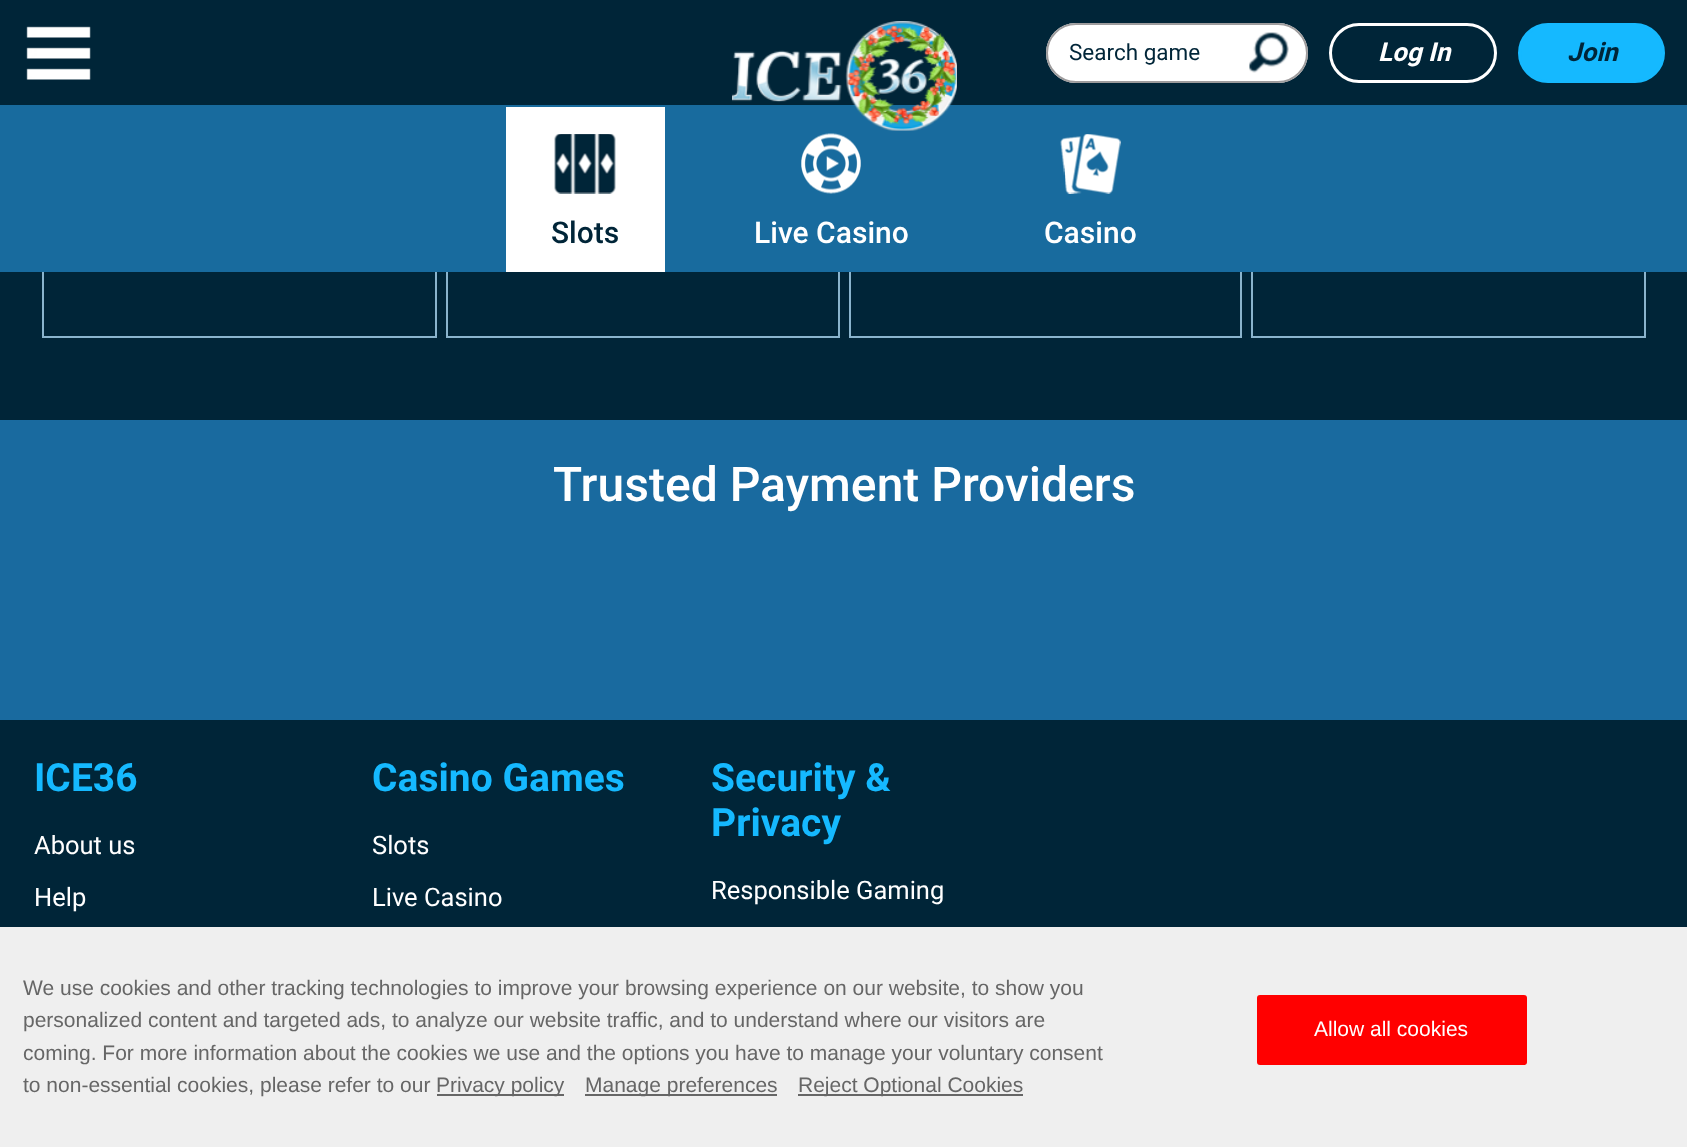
<svg xmlns="http://www.w3.org/2000/svg" width="1687" height="1147">
	<rect width="100%" height="100%" fill="#002538" />
	<rect x="43" y="-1" width="393" height="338" fill="none" stroke="#8AB4CD" stroke-width="2" />
	<rect x="447" y="-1" width="392" height="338" fill="none" stroke="#8AB4CD" stroke-width="2" />
	<rect x="850" y="-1" width="391" height="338" fill="none" stroke="#8AB4CD" stroke-width="2" />
	<rect x="1252" y="-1" width="393" height="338" fill="none" stroke="#8AB4CD" stroke-width="2" />
	<rect x="42" y="0" width="1604" height="105" fill="#002538" />
	<image x="26" y="26" width="65" height="54" href="assets/img1.png" />
	<rect x="0" y="105" width="1687" height="2" fill="#186B9D" />
	<rect x="0" y="107" width="1687" height="165" fill="#186B9E" />
	<image x="732" y="21" width="225" height="110" href="assets/img2.png" />
	<rect x="1046" y="23" width="262" height="60" rx="30" fill="#FFFFFF" />
	<image x="1249" y="32" width="40" height="41" href="assets/img3.png" />
	<rect x="1047" y="24" width="260" height="58" rx="29" fill="none" stroke="#9E9C9D" stroke-width="2" />
	<text x="1069" y="60" font-family="Roboto" font-size="22.5" fill="#002538">Search game</text>
	<rect x="1330.5" y="24.5" width="165" height="57" rx="28.5" fill="none" stroke="#FFFFFF" stroke-width="3" />
	<text x="1378" y="61" font-family="Roboto" font-size="26" font-weight="700" font-style="italic" fill="#FFFFFF">Log In</text>
	<rect x="1519.5" y="24.5" width="144" height="57" rx="28.5" fill="#15B9FF" stroke="#15B9FF" stroke-width="3" />
	<text x="1567" y="61" font-family="Roboto" font-size="26" font-weight="700" font-style="italic" fill="#002538">Join</text>
	<rect x="506" y="107" width="159" height="165" fill="#FFFFFF" />
	<image x="554" y="134" width="62" height="60" href="assets/img4.png" />
	<text x="551" y="243" font-family="Roboto" font-size="30" font-weight="500" fill="#002538">Slots</text>
	<image x="801" y="133" width="60" height="61" href="assets/img5.png" />
	<text x="754" y="243" font-family="Roboto" font-size="30" font-weight="500" fill="#FFFFFF">Live Casino</text>
	<image x="1060" y="134" width="61" height="60" href="assets/img6.png" />
	<text x="1044" y="243" font-family="Roboto" font-size="30" font-weight="500" fill="#FFFFFF">Casino</text>
	<rect x="0" y="420" width="1687" height="300" fill="#196A9F" />
	<text x="553" y="501" font-family="Roboto" font-size="48" font-weight="500" fill="#FFFFFF">Trusted Payment Providers</text>
	<text x="34" y="791" font-family="Roboto" font-size="39" font-weight="700" fill="#15B9FF">ICE36</text>
	<g font-family="Roboto" font-size="25.5" fill="#FFFFFF">
		<text x="34" y="854">About us</text>
		<text x="34" y="906">Help</text>
	</g>
	<text x="372" y="791" font-family="Roboto" font-size="39" font-weight="700" fill="#15B9FF">Casino Games</text>
	<g font-family="Roboto" font-size="25.5" fill="#FFFFFF">
		<text x="372" y="854">Slots</text>
		<text x="372" y="906">Live Casino</text>
	</g>
	<g font-family="Roboto" font-size="39" font-weight="700" fill="#15B9FF">
		<text x="711" y="791">Security &amp;</text>
		<text x="711" y="836">Privacy</text>
	</g>
	<text x="711" y="899" font-family="Roboto" font-size="25.5" fill="#FFFFFF">Responsible Gaming</text>
	<rect x="0" y="927" width="1687" height="220" fill="#EFEFEF" />
	<g font-family="Liberation Sans" font-size="21" fill="#666666">
		<text x="23" y="995">We use cookies and other tracking technologies to improve your browsing experience on our website, to show you</text>
		<text x="23" y="1027">personalized content and targeted ads, to analyze our website traffic, and to understand where our visitors are</text>
		<text x="23" y="1060">coming. For more information about the cookies we use and the options you have to manage your voluntary consent</text>
		<text x="23" y="1092">to non-essential cookies, please refer to our</text>
	</g>
	<rect x="437" y="1094" width="127" height="2" fill="#666666" />
	<text x="436" y="1092" font-family="Liberation Sans" font-size="21" fill="#666666">Privacy policy</text>
	<rect x="585" y="1094" width="192" height="2" fill="#666666" />
	<text x="585" y="1092" font-family="Liberation Sans" font-size="21" fill="#666666">Manage preferences</text>
	<rect x="798" y="1094" width="225" height="2" fill="#666666" />
	<text x="798" y="1092" font-family="Liberation Sans" font-size="21" fill="#666666">Reject Optional Cookies</text>
	<rect x="1257" y="995" width="270" height="70" rx="3" fill="#FF0000" />
	<text x="1314" y="1036" font-family="Liberation Sans" font-size="21" fill="#FFFFFF">Allow all cookies</text>
</svg>
